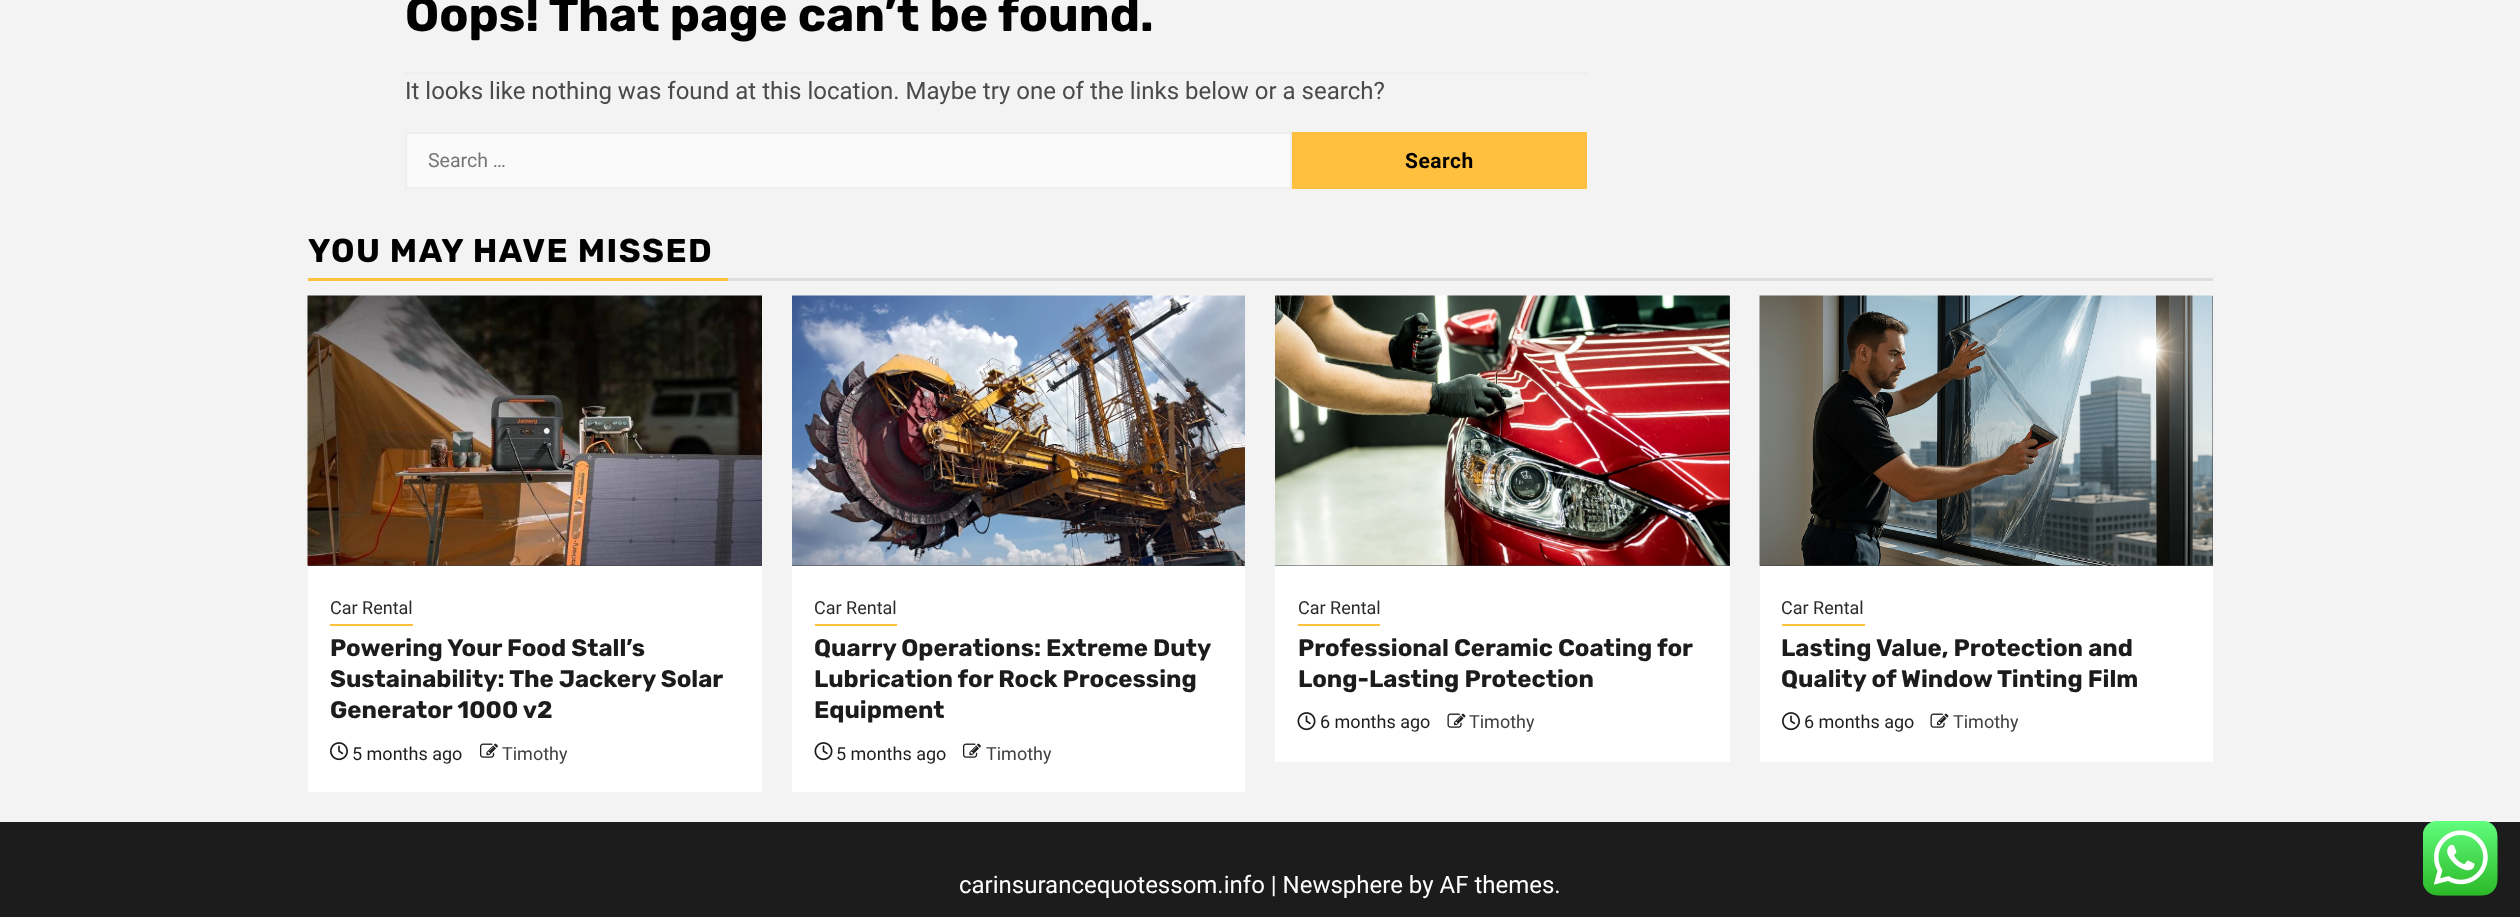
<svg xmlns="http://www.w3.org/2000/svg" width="2520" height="917">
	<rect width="100%" height="100%" fill="#F3F3F3" />
	<rect x="405" y="72" width="1182" height="2" fill="#EEEEEE" />
	<text x="405" y="31" font-family="Rubik" font-size="48" font-weight="700" fill="#000000">Oops! That page can’t be found.</text>
	<text x="405" y="99" font-family="Roboto" font-size="24" fill="#4A4A4A">It looks like nothing was found at this location. Maybe try one of the links below or a search?</text>
	<rect x="406" y="133" width="885" height="55" fill="#FAFAFA" stroke="#EEEEEE" stroke-width="2" />
	<text x="428" y="167" font-family="Roboto" font-size="19.5" fill="#757575">Search …</text>
	<rect x="1292" y="132" width="295" height="57" fill="#FFBF3F" />
	<text x="1405" y="168" font-family="Roboto" font-size="21" font-weight="700" letter-spacing="0.5" fill="#000000">Search</text>
	<rect x="308" y="278" width="420" height="3" fill="#FFBF3F" />
	<text x="308" y="262" font-family="Rubik" font-size="33" font-weight="700" letter-spacing="1.5" fill="#000000">YOU MAY HAVE MISSED</text>
	<rect x="728" y="278" width="1485" height="3" fill="#DEDEDE" />
	<rect x="308" y="566" width="454" height="226" fill="#FFFFFF" />
	<rect x="308" y="565" width="454" height="1" fill="#404040" />
	<image x="307" y="295" width="455" height="271" href="assets/img1.png" />
	<rect x="330" y="624" width="83" height="2" fill="#FFBF3F" />
	<text x="330" y="614" font-family="Roboto" font-size="18" fill="#2B2B2B">Car Rental</text>
	<g font-family="Rubik" font-size="24" font-weight="700" fill="#1C1C1C">
		<text x="330" y="656">Powering Your Food Stall’s</text>
		<text x="330" y="687">Sustainability: The Jackery Solar</text>
		<text x="330" y="718">Generator 1000 v2</text>
	</g>
	<image x="330" y="742" width="18" height="19" href="assets/img2.png" />
	<text x="352" y="760" font-family="Roboto" font-size="18" fill="#1C1C1C">5 months ago</text>
	<image x="480" y="743" width="18" height="15" href="assets/img3.png" />
	<text x="502" y="760" font-family="Roboto" font-size="18" fill="#404040">Timothy</text>
	<rect x="792" y="566" width="453" height="226" fill="#FFFFFF" />
	<rect x="792" y="565" width="453" height="1" fill="#404040" />
	<image x="792" y="295" width="453" height="271" href="assets/img4.png" />
	<rect x="815" y="624" width="82" height="2" fill="#FFBF3F" />
	<text x="814" y="614" font-family="Roboto" font-size="18" fill="#2B2B2B">Car Rental</text>
	<g font-family="Rubik" font-size="24" font-weight="700" fill="#1C1C1C">
		<text x="814" y="656">Quarry Operations: Extreme Duty</text>
		<text x="814" y="687">Lubrication for Rock Processing</text>
		<text x="814" y="718">Equipment</text>
	</g>
	<image x="814" y="742" width="19" height="19" href="assets/img5.png" />
	<text x="836" y="760" font-family="Roboto" font-size="18" fill="#1C1C1C">5 months ago</text>
	<image x="963" y="743" width="18" height="15" href="assets/img3.png" />
	<text x="986" y="760" font-family="Roboto" font-size="18" fill="#404040">Timothy</text>
	<rect x="1275" y="566" width="455" height="196" fill="#FFFFFF" />
	<rect x="1275" y="296" width="455" height="270" fill="#404040" />
	<image x="1275" y="295" width="455" height="271" href="assets/img6.png" />
	<rect x="1298" y="624" width="82" height="2" fill="#FFBF3F" />
	<text x="1298" y="614" font-family="Roboto" font-size="18" fill="#2B2B2B">Car Rental</text>
	<g font-family="Rubik" font-size="24" font-weight="700" fill="#1C1C1C">
		<text x="1298" y="656">Professional Ceramic Coating for</text>
		<text x="1298" y="687">Long-Lasting Protection</text>
	</g>
	<image x="1297" y="712" width="19" height="19" href="assets/img5.png" />
	<text x="1320" y="728" font-family="Roboto" font-size="18" fill="#1C1C1C">6 months ago</text>
	<image x="1447" y="713" width="19" height="15" href="assets/img7.png" />
	<text x="1469" y="728" font-family="Roboto" font-size="18" fill="#404040">Timothy</text>
	<rect x="1760" y="566" width="453" height="196" fill="#FFFFFF" />
	<rect x="1760" y="296" width="453" height="270" fill="#404040" />
	<image x="1759" y="295" width="454" height="271" href="assets/img8.png" />
	<rect x="1782" y="624" width="83" height="2" fill="#FFBF3F" />
	<text x="1781" y="614" font-family="Roboto" font-size="18" fill="#2B2B2B">Car Rental</text>
	<g font-family="Rubik" font-size="24" font-weight="700" fill="#1C1C1C">
		<text x="1781" y="656">Lasting Value, Protection and</text>
		<text x="1781" y="687">Quality of Window Tinting Film</text>
	</g>
	<image x="1782" y="712" width="18" height="19" href="assets/img2.png" />
	<text x="1804" y="728" font-family="Roboto" font-size="18" fill="#1C1C1C">6 months ago</text>
	<image x="1930" y="713" width="19" height="15" href="assets/img7.png" />
	<text x="1953" y="728" font-family="Roboto" font-size="18" fill="#404040">Timothy</text>
	<rect x="0" y="822" width="2520" height="95" fill="#1C1C1C" />
	<text x="959" y="893" font-family="Roboto" font-size="24" fill="#FFFFFF">carinsurancequotessom.info | Newsphere by AF themes.</text>
	<image x="2423" y="821" width="75" height="75" href="assets/img9.png" />
</svg>
